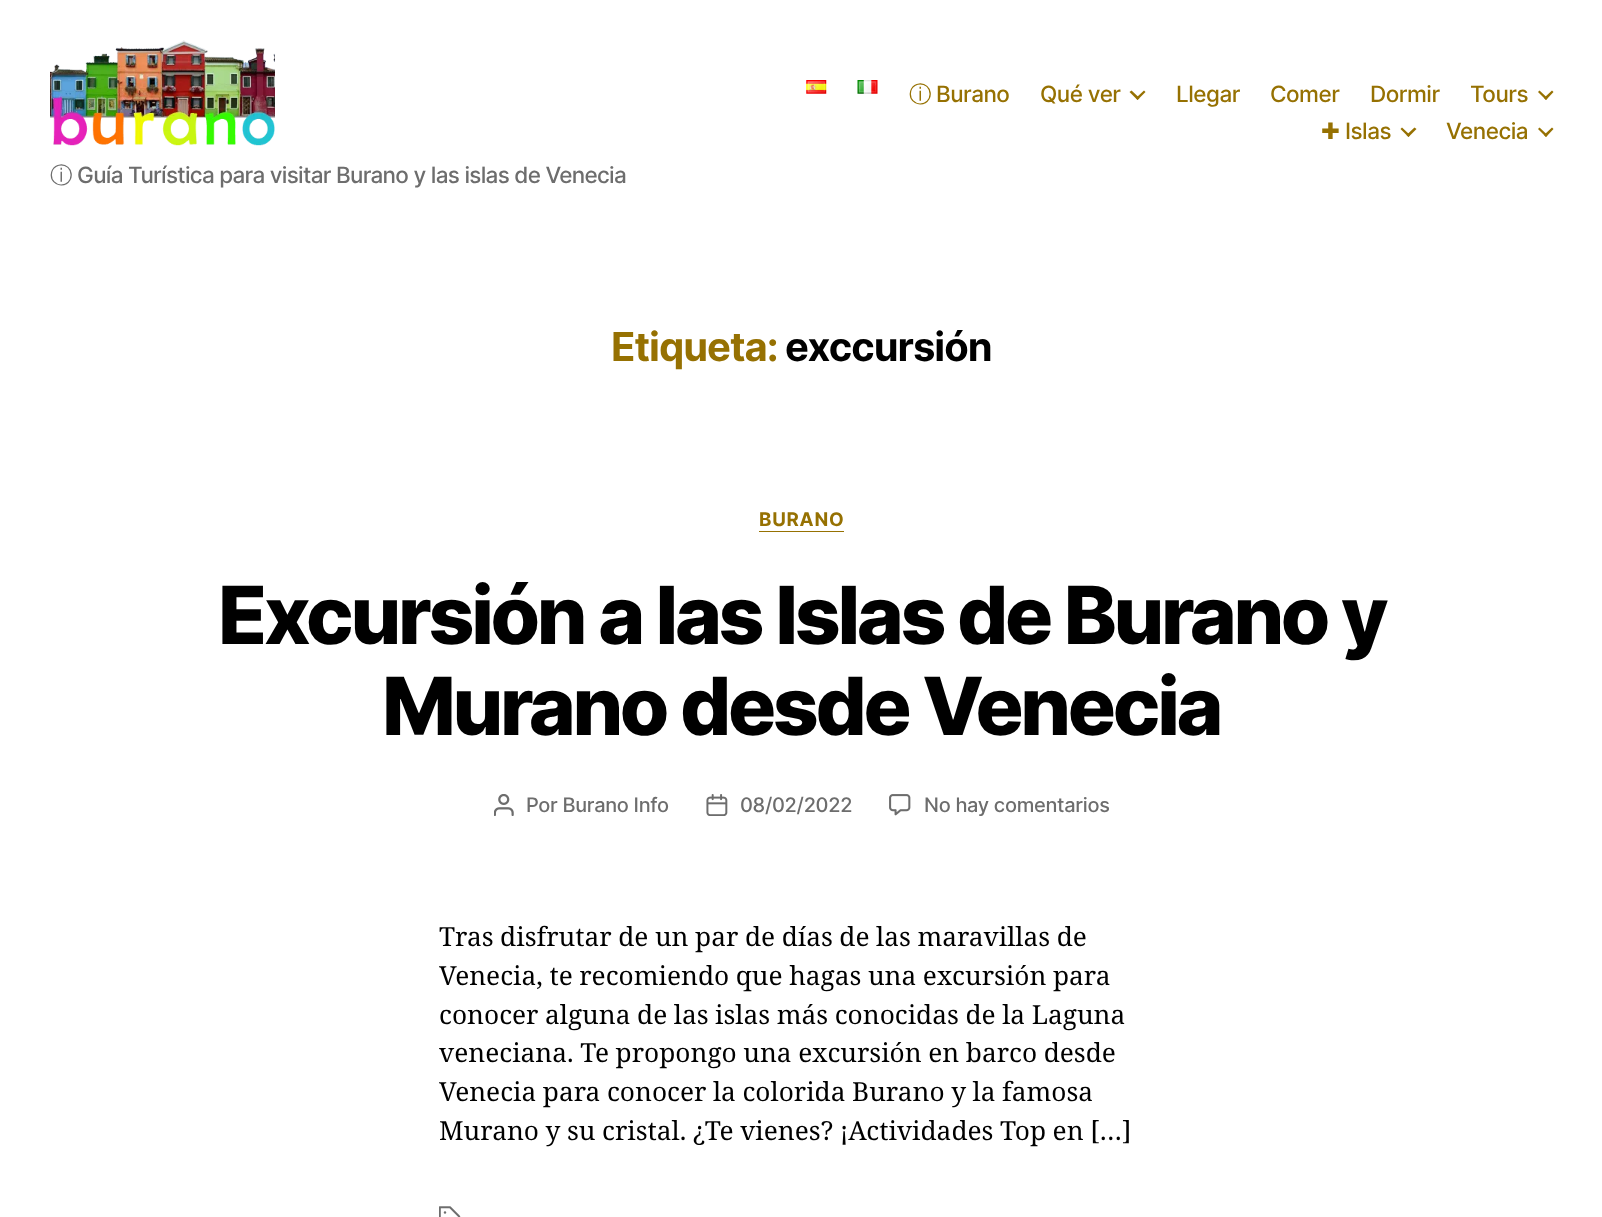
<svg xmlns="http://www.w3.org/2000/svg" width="1602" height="1217">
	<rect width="100%" height="100%" fill="#FFFFFF" />
	<image x="806" y="80" width="21" height="14" href="assets/img1.png" />
	<image x="857" y="80" width="21" height="14" href="assets/img2.png" />
	<text x="909" y="102" font-family="WenQuanYi Zen Hei" font-size="22.5" font-weight="500" letter-spacing="-0.5" fill="#967102">ⓘ</text>
	<g font-family="Inter" font-size="22.5" font-weight="500" letter-spacing="-0.5" fill="#967102">
		<text x="936" y="102">Burano</text>
		<text x="1040" y="102">Qué ver</text>
	</g>
	<path d="M1129.5 92L1131.5 90.5L1139.5 98L1137.5 100Z" fill="#967102" />
	<path d="M1136 98L1144 90.5L1145.5 92L1137.5 100Z" fill="#967102" />
	<g font-family="Inter" font-size="22.5" font-weight="500" letter-spacing="-0.5" fill="#967102">
		<text x="1176" y="102">Llegar</text>
		<text x="1270" y="102">Comer</text>
		<text x="1370" y="102">Dormir</text>
		<text x="1470" y="102">Tours</text>
	</g>
	<path d="M1538 92L1539.5 90.5L1547.5 98L1546 100Z" fill="#967102" />
	<path d="M1544 98L1552 90.5L1553.5 92L1546 100Z" fill="#967102" />
	<text x="1321" y="139" font-family="DejaVu Sans" font-size="22.5" letter-spacing="-0.5" fill="#967102">✚</text>
	<text x="1345" y="139" font-family="Inter" font-size="22.5" font-weight="500" letter-spacing="-0.5" fill="#967102">Islas</text>
	<path d="M1400.5 129L1402 127.5L1410 135L1408.5 137Z" fill="#967102" />
	<path d="M1406.5 135L1414.5 127.5L1416.5 129L1408.5 137Z" fill="#967102" />
	<text x="1446" y="139" font-family="Inter" font-size="22.5" font-weight="500" letter-spacing="-0.5" fill="#967102">Venecia</text>
	<path d="M1538 129L1539.5 127.5L1547.5 135L1546 137Z" fill="#967102" />
	<path d="M1544 135L1552 127.5L1553.5 129L1546 137Z" fill="#967102" />
	<image x="50" y="40" width="225" height="106" href="assets/img3.png" />
	<text x="50" y="183" font-family="WenQuanYi Zen Hei" font-size="22.5" font-weight="500" letter-spacing="-0.7" fill="#6D6D6D">ⓘ</text>
	<text x="77" y="183" font-family="Inter" font-size="22.5" font-weight="500" letter-spacing="-0.7" fill="#6D6D6D">Guía Turística para visitar Burano y las islas de Venecia</text>
	<text x="611" y="361" font-family="Inter" font-size="40" font-weight="700" letter-spacing="-1" fill="#967102">Etiqueta:</text>
	<text x="785" y="361" font-family="Inter" font-size="40" font-weight="700" letter-spacing="-1" fill="#000000">exccursión</text>
	<rect x="759" y="531" width="85" height="1" fill="#967102" />
	<text x="759" y="526" font-family="Inter" font-size="18.75" font-weight="700" letter-spacing="0.75" fill="#967102">BURANO</text>
	<g font-family="Inter" font-size="80" font-weight="800" letter-spacing="-3.3" fill="#000000">
		<text x="218" y="644">Excursión a las Islas de Burano y</text>
		<text x="382" y="735">Murano desde Venecia</text>
	</g>
	<image x="494" y="794" width="20" height="22" href="assets/img4.png" />
	<text x="526" y="812" font-family="Inter" font-size="20" font-weight="500" letter-spacing="-0.3" fill="#6D6D6D">Por Burano Info</text>
	<image x="706" y="794" width="22" height="22" href="assets/img5.png" />
	<text x="740" y="812" font-family="Inter" font-size="20" font-weight="500" letter-spacing="-0.3" fill="#6D6D6D">08/02/2022</text>
	<image x="889" y="794" width="22" height="22" href="assets/img6.png" />
	<text x="924" y="812" font-family="Inter" font-size="20" font-weight="500" letter-spacing="-0.3" fill="#6D6D6D">No hay comentarios</text>
	<g font-family="Noto Serif" font-size="26.25" fill="#000000">
		<text x="439" y="946" word-spacing="-0.25">Tras disfrutar de un par de días de las maravillas de</text>
		<text x="439" y="985" word-spacing="-0.25">Venecia, te recomiendo que hagas una excursión para</text>
		<text x="439" y="1024" word-spacing="-0.25">conocer alguna de las islas más conocidas de la Laguna</text>
		<text x="439" y="1062" word-spacing="-0.25">veneciana. Te propongo una excursión en barco desde</text>
		<text x="439" y="1101" word-spacing="-0.25">Venecia para conocer la colorida Burano y la famosa</text>
		<text x="439" y="1140" word-spacing="-0.25">Murano y su cristal. ¿Te vienes? ¡Actividades Top en […]</text>
	</g>
	<image x="439" y="1206" width="22" height="11" href="assets/img7.png" />
</svg>
